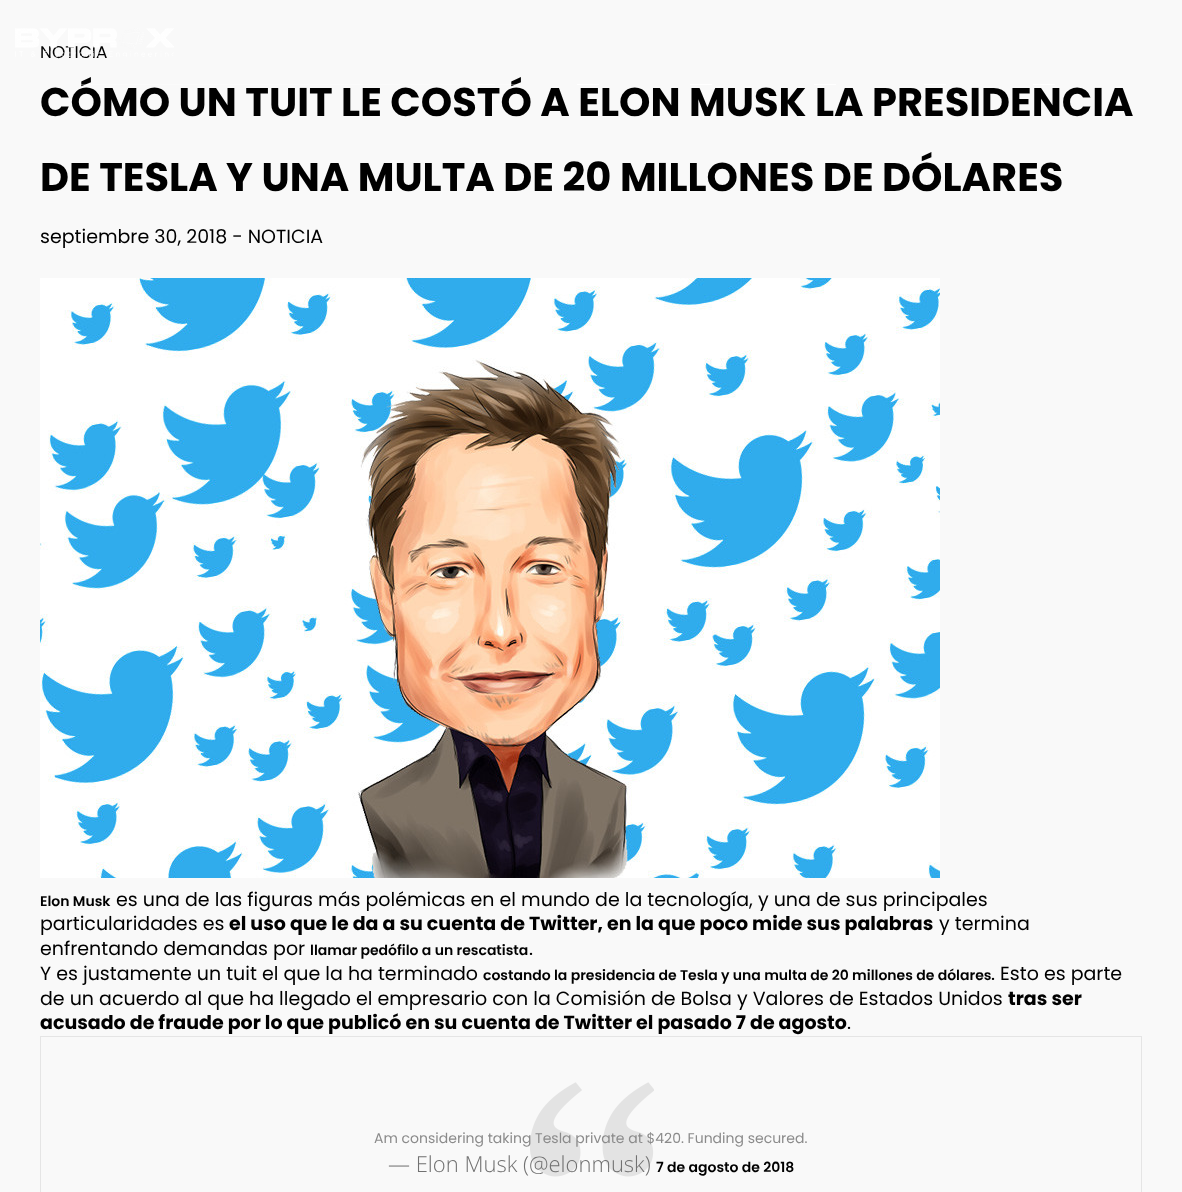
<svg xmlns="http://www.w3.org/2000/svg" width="1182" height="1192">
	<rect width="100%" height="100%" fill="#F9F9F9" />
	<text x="40" y="58" font-family="Poppins" font-size="17" fill="#000000">NOTICIA</text>
	<image x="15" y="28" width="159" height="29" href="assets/img1.png" />
	<text x="40" y="116" font-family="Poppins" font-size="40" font-weight="700" fill="#000000">CÓMO UN TUIT LE COSTÓ A ELON MUSK LA PRESIDENCIA</text>
	<rect x="81" y="84" width="436" height="1" fill="#FFFFFF" fill-opacity="0.3" />
	<rect x="473" y="84" width="22" height="1" fill="#FFFFFF" />
	<rect x="577" y="84" width="22" height="1" fill="#FFFFFF" />
	<rect x="690" y="84" width="22" height="1" fill="#FFFFFF" />
	<rect x="814" y="84" width="22" height="1" fill="#FFFFFF" />
	<rect x="924" y="84" width="22" height="1" fill="#FFFFFF" />
	<rect x="1033" y="84" width="22" height="1" fill="#FFFFFF" />
	<text x="40" y="191" font-family="Poppins" font-size="40" font-weight="700" fill="#000000">DE TESLA Y UNA MULTA DE 20 MILLONES DE DÓLARES</text>
	<text x="40" y="243" font-family="Poppins" font-size="19" fill="#000000">septiembre 30, 2018 - NOTICIA</text>
	<image x="40" y="278" width="900" height="600" href="assets/img2.png" />
	<text x="40" y="906" font-family="Poppins" font-size="14" font-weight="600" fill="#000000">Elon Musk</text>
	<g font-family="Poppins" font-size="19" fill="#000000">
		<text x="116" y="906">es una de las figuras más polémicas en el mundo de la tecnología, y una de sus principales</text>
		<text x="40" y="930">particularidades es</text>
	</g>
	<text x="229" y="930" font-family="Poppins" font-size="19" font-weight="700" fill="#000000">el uso que le da a su cuenta de Twitter, en la que poco mide sus palabras</text>
	<g font-family="Poppins" font-size="19" fill="#000000">
		<text x="939" y="930">y termina</text>
		<text x="40" y="955">enfrentando demandas por</text>
	</g>
	<text x="310" y="955" font-family="Poppins" font-size="14" font-weight="600" fill="#000000">llamar pedófilo a un rescatista</text>
	<g font-family="Poppins" font-size="19" fill="#000000">
		<text x="529" y="955">.</text>
		<text x="40" y="980">Y es justamente un tuit el que la ha terminado</text>
	</g>
	<text x="483" y="980" font-family="Poppins" font-size="14" font-weight="600" fill="#000000">costando la presidencia de Tesla y una multa de 20 millones de dólares</text>
	<g font-family="Poppins" font-size="19" fill="#000000">
		<text x="991" y="980">. Esto es parte</text>
		<text x="40" y="1005">de un acuerdo al que ha llegado el empresario con la Comisión de Bolsa y Valores de Estados Unidos</text>
	</g>
	<g font-family="Poppins" font-size="19" font-weight="700" fill="#000000">
		<text x="1008" y="1005">tras ser</text>
		<text x="40" y="1029">acusado de fraude por lo que publicó en su cuenta de Twitter el pasado 7 de agosto</text>
	</g>
	<text x="847" y="1029" font-family="Poppins" font-size="19" fill="#000000">.</text>
	<image x="530" y="1082" width="124" height="95" href="assets/img3.png" />
	<rect x="40.5" y="1036.5" width="1101" height="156" fill="none" stroke="#E5E5E5" />
	<text x="374" y="1143" font-family="Poppins" font-size="14" fill="#8B8B8B">Am considering taking Tesla private at $420. Funding secured.</text>
	<text x="388" y="1172" font-family="Open Sans" font-size="22" font-weight="300" fill="#717171">— Elon Musk (@elonmusk)</text>
	<text x="656" y="1172" font-family="Poppins" font-size="14" font-weight="600" fill="#000000">7 de agosto de 2018</text>
</svg>
